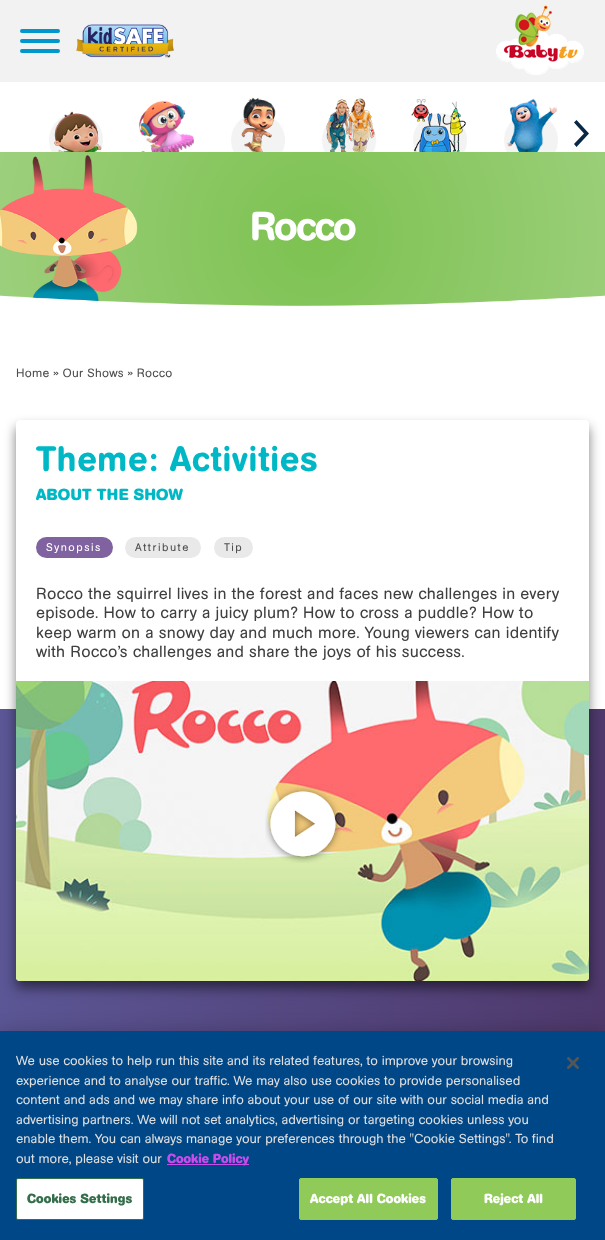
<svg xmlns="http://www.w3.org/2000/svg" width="605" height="1240">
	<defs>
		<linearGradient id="g1" gradientUnits="userSpaceOnUse" x1="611" y1="1051" x2="-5.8" y2="1040"><stop offset="0" stop-color="#4E386B" /><stop offset="1" stop-color="#5B5695" /></linearGradient>
	</defs>
	<rect width="100%" height="100%" fill="#FFFFFF" />
	<rect x="0" y="0" width="605" height="82" fill="#F2F2F2" />
	<rect x="20" y="29" width="40" height="4" rx="2" fill="#0097CD" />
	<rect x="20" y="39" width="40" height="4" rx="2" fill="#0097CD" />
	<rect x="20" y="49" width="40" height="4" rx="2" fill="#0097CD" />
	<image x="76" y="24" width="99" height="34" href="assets/img1.png" />
	<image x="496" y="5" width="88" height="70" href="assets/img2.png" />
	<image x="49" y="111" width="54" height="41" href="assets/img3.png" />
	<image x="138" y="100" width="56" height="52" href="assets/img4.png" />
	<image x="231" y="97" width="54" height="55" href="assets/img5.png" />
	<image x="322" y="98" width="54" height="54" href="assets/img6.png" />
	<image x="411" y="99" width="56" height="53" href="assets/img7.png" />
	<image x="504" y="99" width="54" height="53" href="assets/img8.png" />
	<path d="M574 122.5L576.5 120L589 133.5L576.5 147L574 144L584 133.5Z" fill="#082846" />
	<image x="0" y="152" width="605" height="154" href="assets/img9.png" />
	<text x="250" y="240" font-family="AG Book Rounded" font-size="40" font-weight="500" letter-spacing="-1.5" fill="#FFFFFF">Rocco</text>
	<text x="16" y="377" font-family="AG Book Rounded" font-size="12" letter-spacing="0.25" fill="#4E4E4E">Home » Our Shows » Rocco</text>
	<rect x="0" y="709" width="605" height="322" fill="url(#g1)" />
	<rect x="16" y="427" width="573" height="561" rx="4" fill="#000000" fill-opacity="0.5" filter="blur(6px)" />
	<rect x="16" y="420" width="573" height="561" rx="4" fill="#FFFFFF" />
	<text x="36" y="471" font-family="AG Book Rounded" font-size="35" font-weight="500" letter-spacing="1" fill="#00B8C5">Theme: Activities</text>
	<text x="36" y="500" font-family="AG Book Rounded" font-size="16" font-weight="700" letter-spacing="0.25" fill="#00B8C5">ABOUT THE SHOW</text>
	<rect x="36" y="537" width="77" height="21" rx="10.5" fill="#8162A1" />
	<text x="46" y="551" font-family="AG Book Rounded" font-size="11" letter-spacing="1.5" fill="#FFFFFF">Synopsis</text>
	<rect x="125" y="537" width="76" height="21" rx="10.5" fill="#E9E9E9" />
	<text x="135" y="551" font-family="AG Book Rounded" font-size="11" letter-spacing="1.5" fill="#4E4E4E">Attribute</text>
	<rect x="214" y="537" width="39" height="21" rx="10.5" fill="#E9E9E9" />
	<text x="224" y="551" font-family="AG Book Rounded" font-size="11" letter-spacing="1.5" fill="#4E4E4E">Tip</text>
	<g font-family="AG Book Rounded" font-size="16" letter-spacing="0.25" fill="#3F3F3F">
		<text x="36" y="599">Rocco the squirrel lives in the forest and faces new challenges in every</text>
		<text x="36" y="618">episode. How to carry a juicy plum? How to cross a puddle? How to</text>
		<text x="36" y="638">keep warm on a snowy day and much more. Young viewers can identify</text>
		<text x="36" y="657">with Rocco’s challenges and share the joys of his success.</text>
	</g>
	<image x="16" y="681" width="573" height="300" href="assets/img10.png" />
	<image x="265" y="787" width="76" height="76" href="assets/img11.png" />
	<rect x="0" y="1031" width="605" height="209" fill="#000000" fill-opacity="0.2" filter="blur(9px)" />
	<rect x="0" y="1031" width="605" height="209" fill="#004788" />
	<g font-family="AG Book Rounded" font-size="13" fill="#DEDEDE">
		<text x="16" y="1065">We use cookies to help run this site and its related features, to improve your browsing</text>
		<text x="16" y="1085">experience and to analyse our traffic. We may also use cookies to provide personalised</text>
		<text x="16" y="1104">content and ads and we may share info about your use of our site with our social media and</text>
		<text x="16" y="1124">advertising partners. We will not set analytics, advertising or targeting cookies unless you</text>
		<text x="16" y="1143">enable them. You can always manage your preferences through the "Cookie Settings". To find</text>
		<text x="16" y="1163">out more, please visit our</text>
	</g>
	<rect x="167" y="1164" width="82" height="1" fill="#C94BEC" />
	<text x="167" y="1163" font-family="AG Book Rounded" font-size="13" font-weight="700" fill="#C94BEC">Cookie Policy</text>
	<rect x="16.5" y="1178.5" width="127" height="41" rx="1.5" fill="#FFFFFF" stroke="#346E4A" />
	<text x="27" y="1203" font-family="AG Book Rounded" font-size="13" font-weight="700" letter-spacing="0.1" fill="#346E4A">Cookies Settings</text>
	<rect x="299.5" y="1178.5" width="138" height="41" rx="1.5" fill="#90CB5A" stroke="#90CB5A" />
	<text x="310" y="1203" font-family="AG Book Rounded" font-size="13" font-weight="700" letter-spacing="0.1" fill="#FFFFFF">Accept All Cookies</text>
	<rect x="451.5" y="1178.5" width="124" height="41" rx="1.5" fill="#90CB5A" stroke="#90CB5A" />
	<text x="484" y="1203" font-family="AG Book Rounded" font-size="13" font-weight="700" letter-spacing="0.1" fill="#FFFFFF">Reject All</text>
	<image x="567" y="1057" width="12" height="12" href="assets/img12.png" />
</svg>
